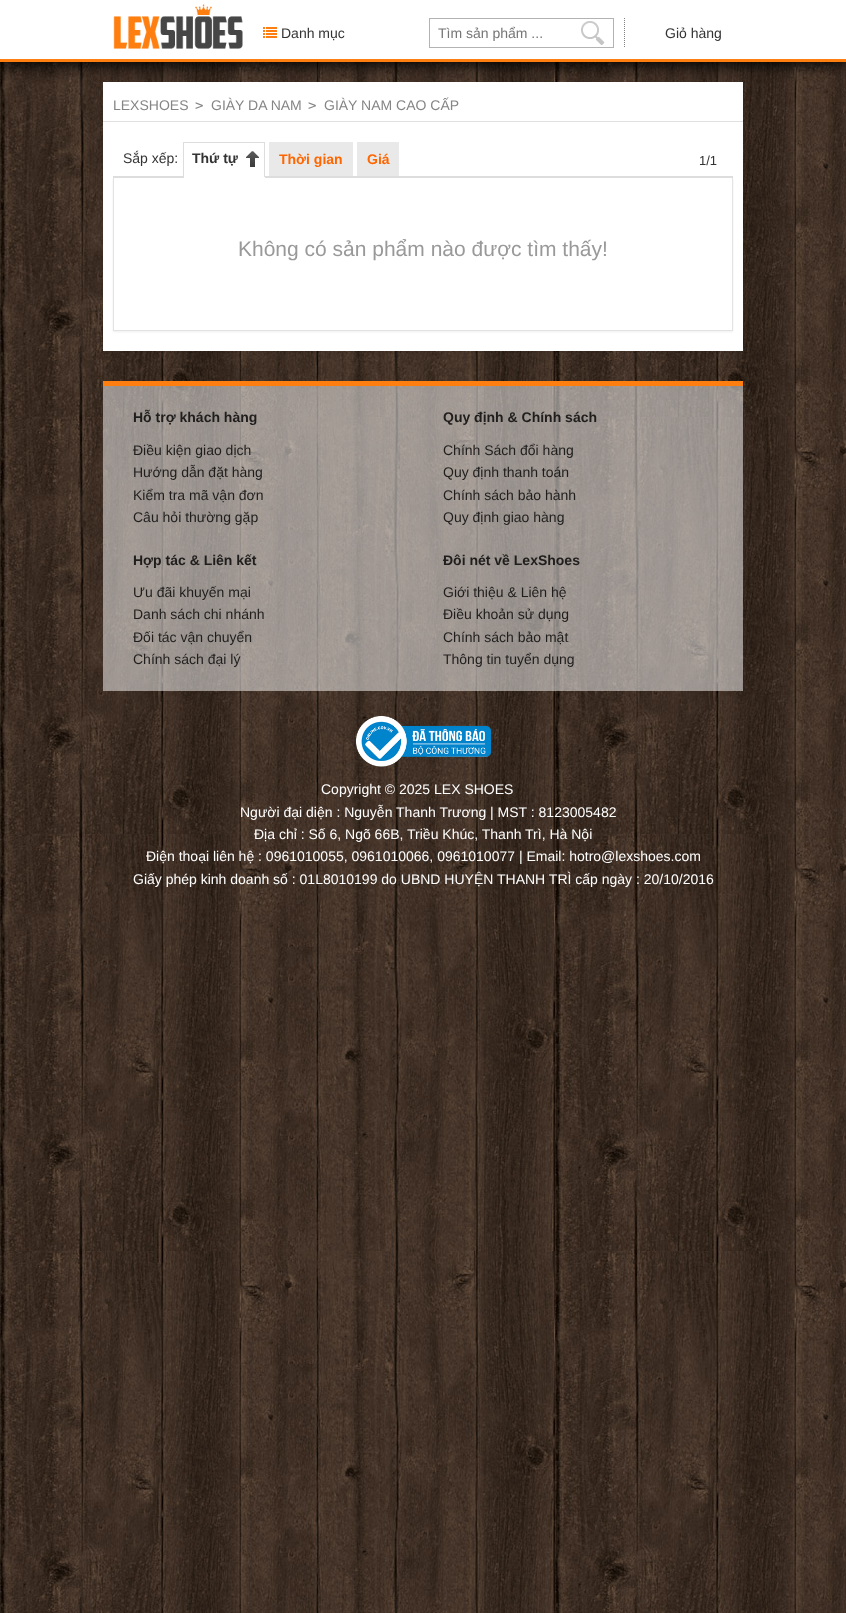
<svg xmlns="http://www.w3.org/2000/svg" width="846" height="1613">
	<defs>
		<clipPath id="clip1"><path d="M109 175H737V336H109ZM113 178H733V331H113Z" clip-rule="evenodd" /></clipPath>
	</defs>
	<rect width="100%" height="100%" fill="#FFFFFF" />
	<image x="0" y="62" width="846" height="1551" href="assets/img1.png" />
	<rect x="103" y="83" width="640" height="269" fill="#000000" fill-opacity="0.1" filter="blur(1px)" />
	<rect x="103" y="82" width="640" height="269" fill="#FFFFFF" />
	<rect x="0" y="3" width="846" height="62" fill="#000000" filter="blur(7.5px)" />
	<rect x="0" y="0" width="846" height="59" fill="#FFFFFF" />
	<rect x="0" y="59" width="846" height="3" fill="#FF7E10" />
	<image x="113" y="4" width="130" height="45" href="assets/img2.png" />
	<image x="263" y="27" width="14" height="11" href="assets/img3.png" />
	<text x="281" y="38" font-family="Liberation Sans" font-size="14" fill="#333333">Danh mục</text>
	<rect x="429.5" y="18.5" width="184" height="29" fill="none" stroke="#B3B3B3" />
	<text x="438" y="38" font-family="Liberation Sans" font-size="14" fill="#757575">Tìm sản phẩm ...</text>
	<image x="581" y="21" width="24" height="24" href="assets/img4.png" />
	<path d="M624.5 18V48" fill="none" stroke="#808080" stroke-dasharray="1 1" />
	<text x="665" y="38" font-family="Liberation Sans" font-size="14" fill="#333333">Giỏ hàng</text>
	<rect x="103" y="121" width="640" height="1" fill="#E0E0E0" />
	<text x="113" y="110" font-family="Liberation Sans" font-size="14" fill="#858585">LEXSHOES</text>
	<text x="195" y="110" font-family="DejaVu Sans Mono" font-size="14" fill="#858585">&gt;</text>
	<text x="211" y="110" font-family="Liberation Sans" font-size="14" fill="#858585">GIÀY DA NAM</text>
	<text x="308" y="110" font-family="DejaVu Sans Mono" font-size="14" fill="#858585">&gt;</text>
	<text x="324" y="110" font-family="Liberation Sans" font-size="14" fill="#858585">GIÀY NAM CAO CẤP</text>
	<g clip-path="url(#clip1)">
		<rect x="113" y="179" width="620" height="153" fill="#EEEEEE" filter="blur(1px)" />
	</g>
	<rect x="113" y="176" width="620" height="2" fill="#DDDDDD" />
	<text x="123" y="163" font-family="Liberation Sans" font-size="14" fill="#333333">Sắp xếp:</text>
	<rect x="184" y="176" width="80" height="1" fill="#FFFFFF" />
	<rect x="183" y="142" width="82" height="1" fill="#DDDDDD" />
	<rect x="264" y="142" width="1" height="36" fill="#DDDDDD" />
	<rect x="183" y="177" width="82" height="1" fill="#FFFFFF" />
	<rect x="183" y="142" width="1" height="36" fill="#DDDDDD" />
	<text x="192" y="163" font-family="Liberation Sans" font-size="14" font-weight="700" fill="#333333">Thứ tự</text>
	<image x="246" y="151" width="13" height="16" href="assets/img5.png" />
	<rect x="271" y="144" width="80" height="32" fill="#E9E9E9" />
	<rect x="269" y="142" width="84" height="2" fill="#E9E9E9" />
	<rect x="351" y="142" width="2" height="34" fill="#E9E9E9" />
	<rect x="269" y="142" width="2" height="34" fill="#E9E9E9" />
	<text x="279" y="164" font-family="Liberation Sans" font-size="14" font-weight="700" fill="#FF6600">Thời gian</text>
	<rect x="359" y="144" width="38" height="32" fill="#E9E9E9" />
	<rect x="357" y="142" width="42" height="2" fill="#E9E9E9" />
	<rect x="397" y="142" width="2" height="34" fill="#E9E9E9" />
	<rect x="357" y="142" width="2" height="34" fill="#E9E9E9" />
	<text x="367" y="164" font-family="Liberation Sans" font-size="14" font-weight="700" fill="#FF6600">Giá</text>
	<text x="699" y="165" font-family="Liberation Sans" font-size="13" fill="#333333">1/1</text>
	<rect x="732" y="178" width="1" height="153" fill="#E3E3E3" />
	<rect x="113" y="330" width="620" height="1" fill="#E3E3E3" />
	<rect x="113" y="178" width="1" height="153" fill="#E3E3E3" />
	<text x="238" y="256" font-family="Liberation Sans" font-size="21" fill="#999999">Không có sản phẩm nào được tìm thấy!</text>
	<rect x="103" y="381" width="640" height="5" fill="#FF7E10" />
	<rect x="103" y="386" width="640" height="305" fill="#FFFFFF" fill-opacity="0.5" />
	<text x="133" y="422" font-family="Liberation Sans" font-size="14" font-weight="700" fill="#1F1E1D">Hỗ trợ khách hàng</text>
	<g font-family="Liberation Sans" font-size="14" fill="#1F1E1D">
		<text x="133" y="455">Điều kiện giao dịch</text>
		<text x="133" y="477">Hướng dẫn đặt hàng</text>
		<text x="133" y="500">Kiểm tra mã vận đơn</text>
		<text x="133" y="522">Câu hỏi thường gặp</text>
	</g>
	<text x="443" y="422" font-family="Liberation Sans" font-size="14" font-weight="700" fill="#1F1E1D">Quy định &amp; Chính sách</text>
	<g font-family="Liberation Sans" font-size="14" fill="#1F1E1D">
		<text x="443" y="455">Chính Sách đổi hàng</text>
		<text x="443" y="477">Quy định thanh toán</text>
		<text x="443" y="500">Chính sách bảo hành</text>
		<text x="443" y="522">Quy định giao hàng</text>
	</g>
	<text x="133" y="565" font-family="Liberation Sans" font-size="14" font-weight="700" fill="#1F1E1D">Hợp tác &amp; Liên kết</text>
	<g font-family="Liberation Sans" font-size="14" fill="#1F1E1D">
		<text x="133" y="597">Ưu đãi khuyến mại</text>
		<text x="133" y="619">Danh sách chi nhánh</text>
		<text x="133" y="642">Đối tác vận chuyển</text>
		<text x="133" y="664">Chính sách đại lý</text>
	</g>
	<text x="443" y="565" font-family="Liberation Sans" font-size="14" font-weight="700" fill="#1F1E1D">Đôi nét về LexShoes</text>
	<g font-family="Liberation Sans" font-size="14" fill="#1F1E1D">
		<text x="443" y="597">Giới thiệu &amp; Liên hệ</text>
		<text x="443" y="619">Điều khoản sử dụng</text>
		<text x="443" y="642">Chính sách bảo mật</text>
		<text x="443" y="664">Thông tin tuyển dụng</text>
	</g>
	<image x="356" y="716" width="135" height="51" href="assets/img6.png" />
	<g font-family="Liberation Sans" font-size="14" fill="#FFFFFF">
		<text x="321" y="794">Copyright © 2025 LEX SHOES</text>
		<text x="240" y="817">Người đại diện : Nguyễn Thanh Trương | MST : 8123005482</text>
		<text x="254" y="839">Địa chỉ : Số 6, Ngõ 66B, Triều Khúc, Thanh Trì, Hà Nội</text>
		<text x="146" y="861">Điện thoại liên hệ : 0961010055, 0961010066, 0961010077 | Email: hotro@lexshoes.com</text>
		<text x="133" y="884">Giấy phép kinh doanh số : 01L8010199 do UBND HUYỆN THANH TRÌ cấp ngày : 20/10/2016</text>
	</g>
</svg>
